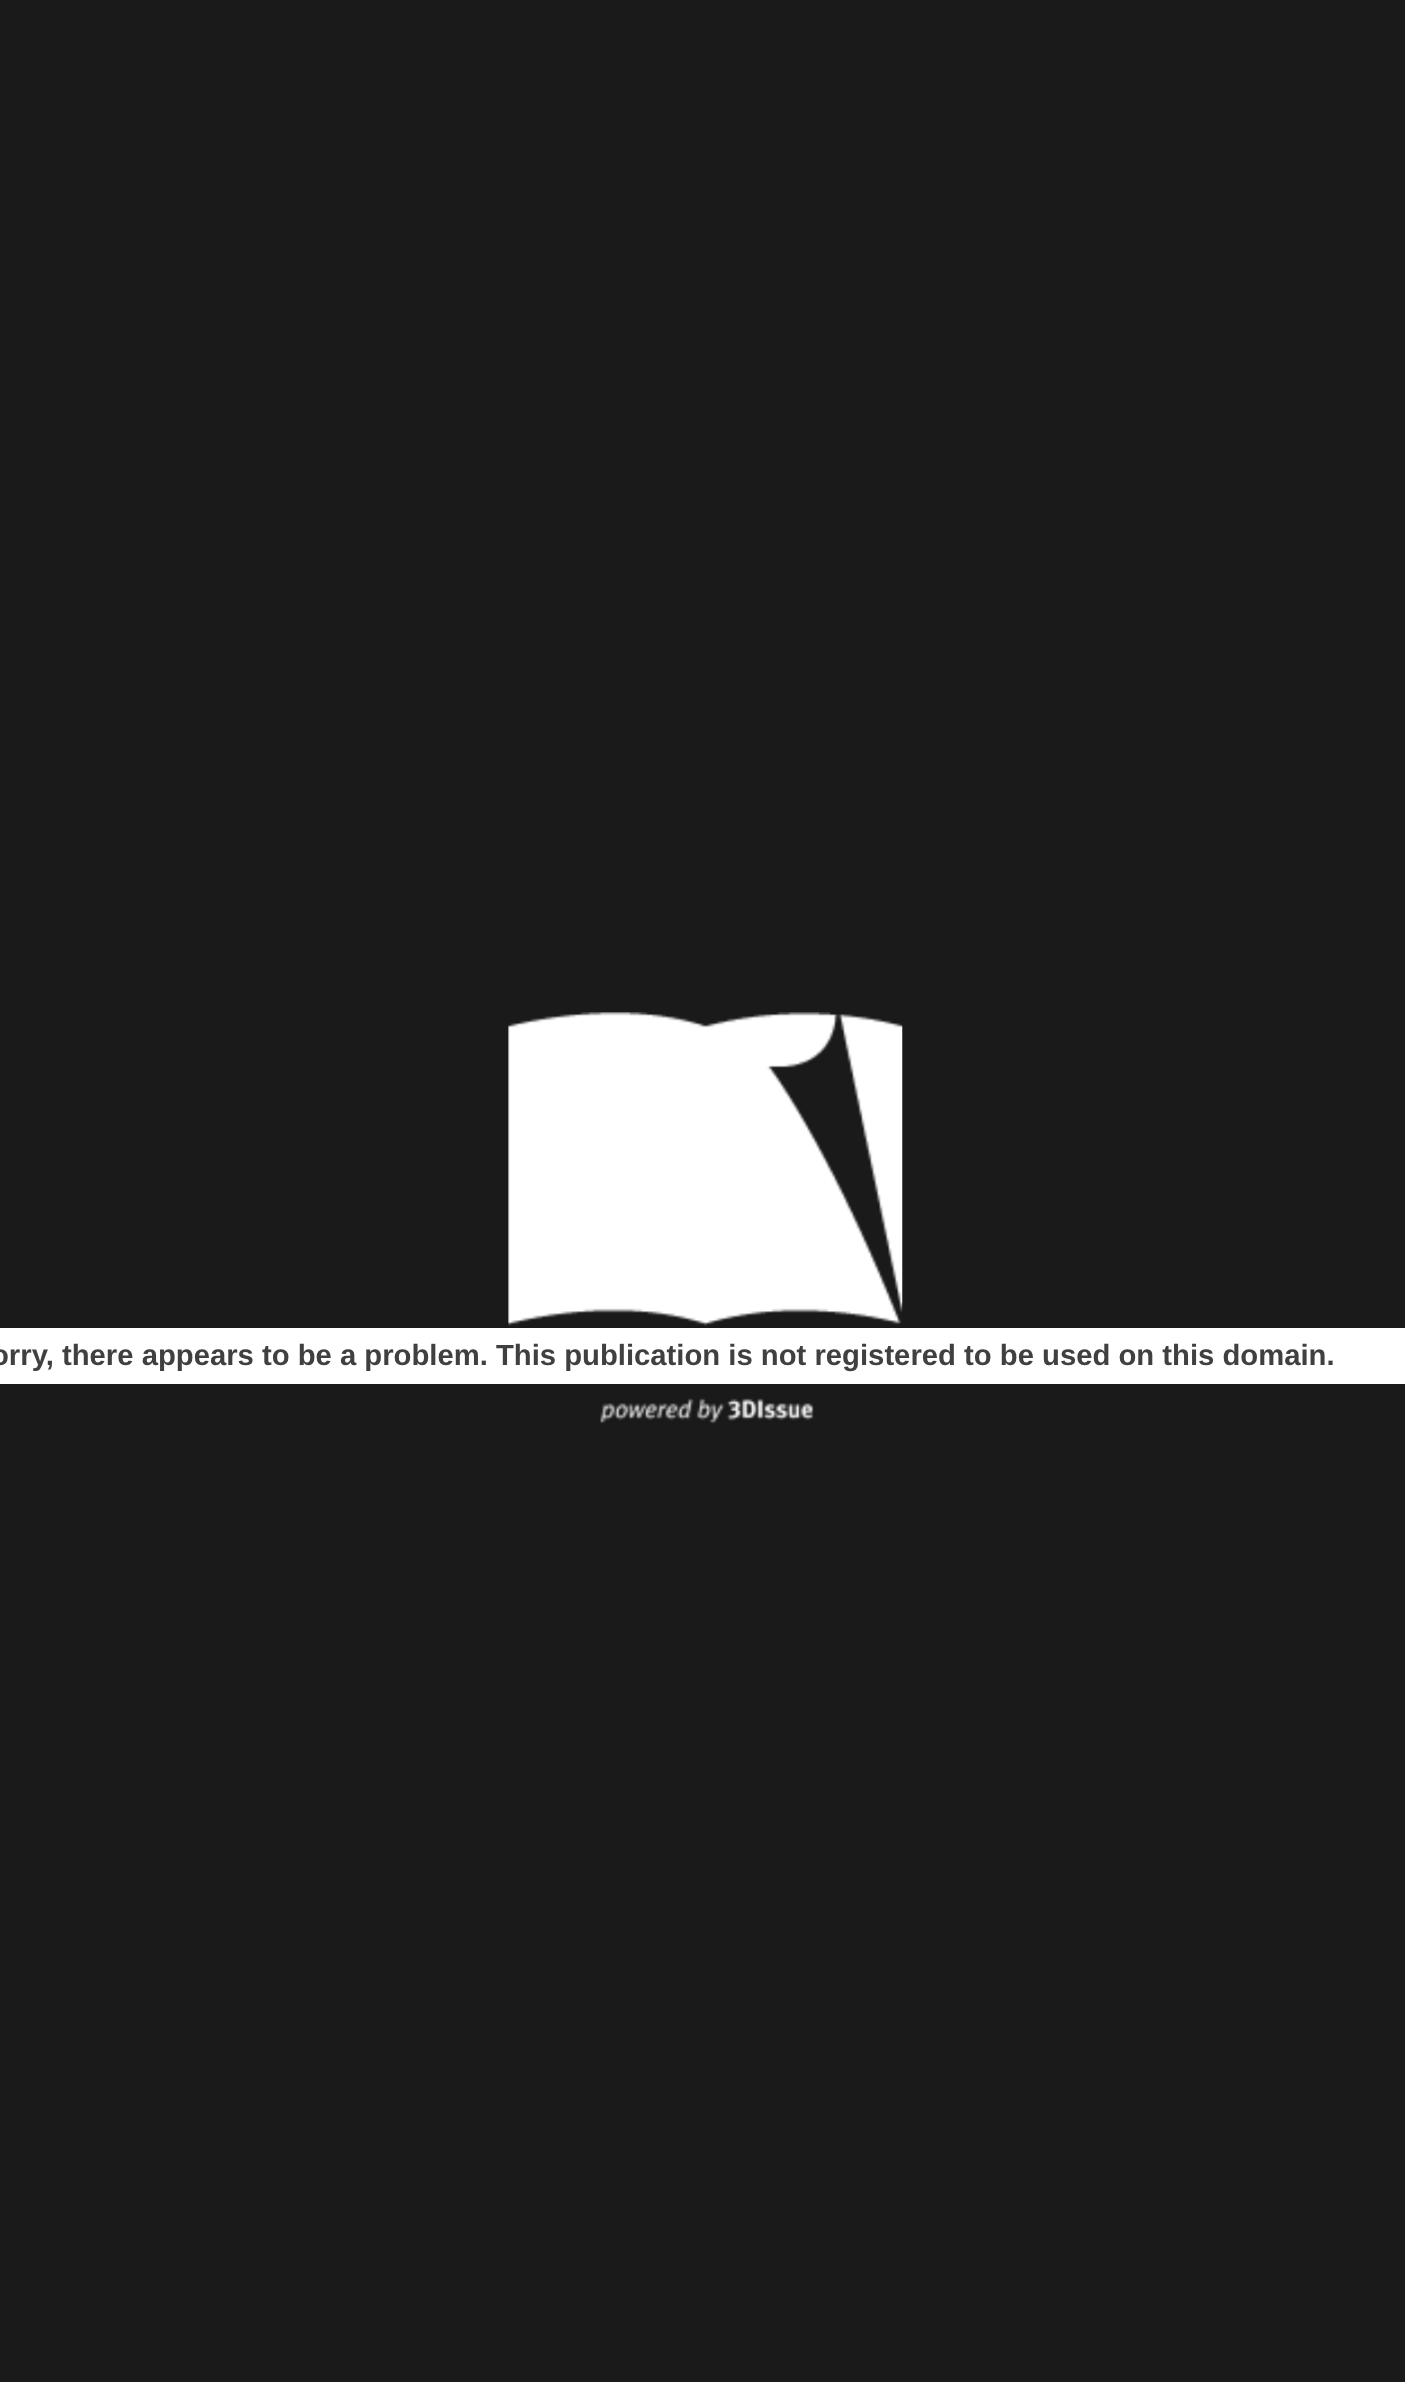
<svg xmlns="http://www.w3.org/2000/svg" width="1405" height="2382">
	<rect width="100%" height="100%" fill="#1A1A1A" />
	<image x="508" y="1012" width="395" height="314" href="assets/img1.png" />
	<rect x="0" y="1328" width="1405" height="56" fill="#FFFFFF" />
	<text x="-9" y="1365" font-family="Liberation Sans" font-size="29.25" font-weight="700" fill="#404040">orry, there appears to be a problem. This publication is not registered to be used on this domain.</text>
	<image x="600" y="1398" width="214" height="26" href="assets/img2.png" />
</svg>
